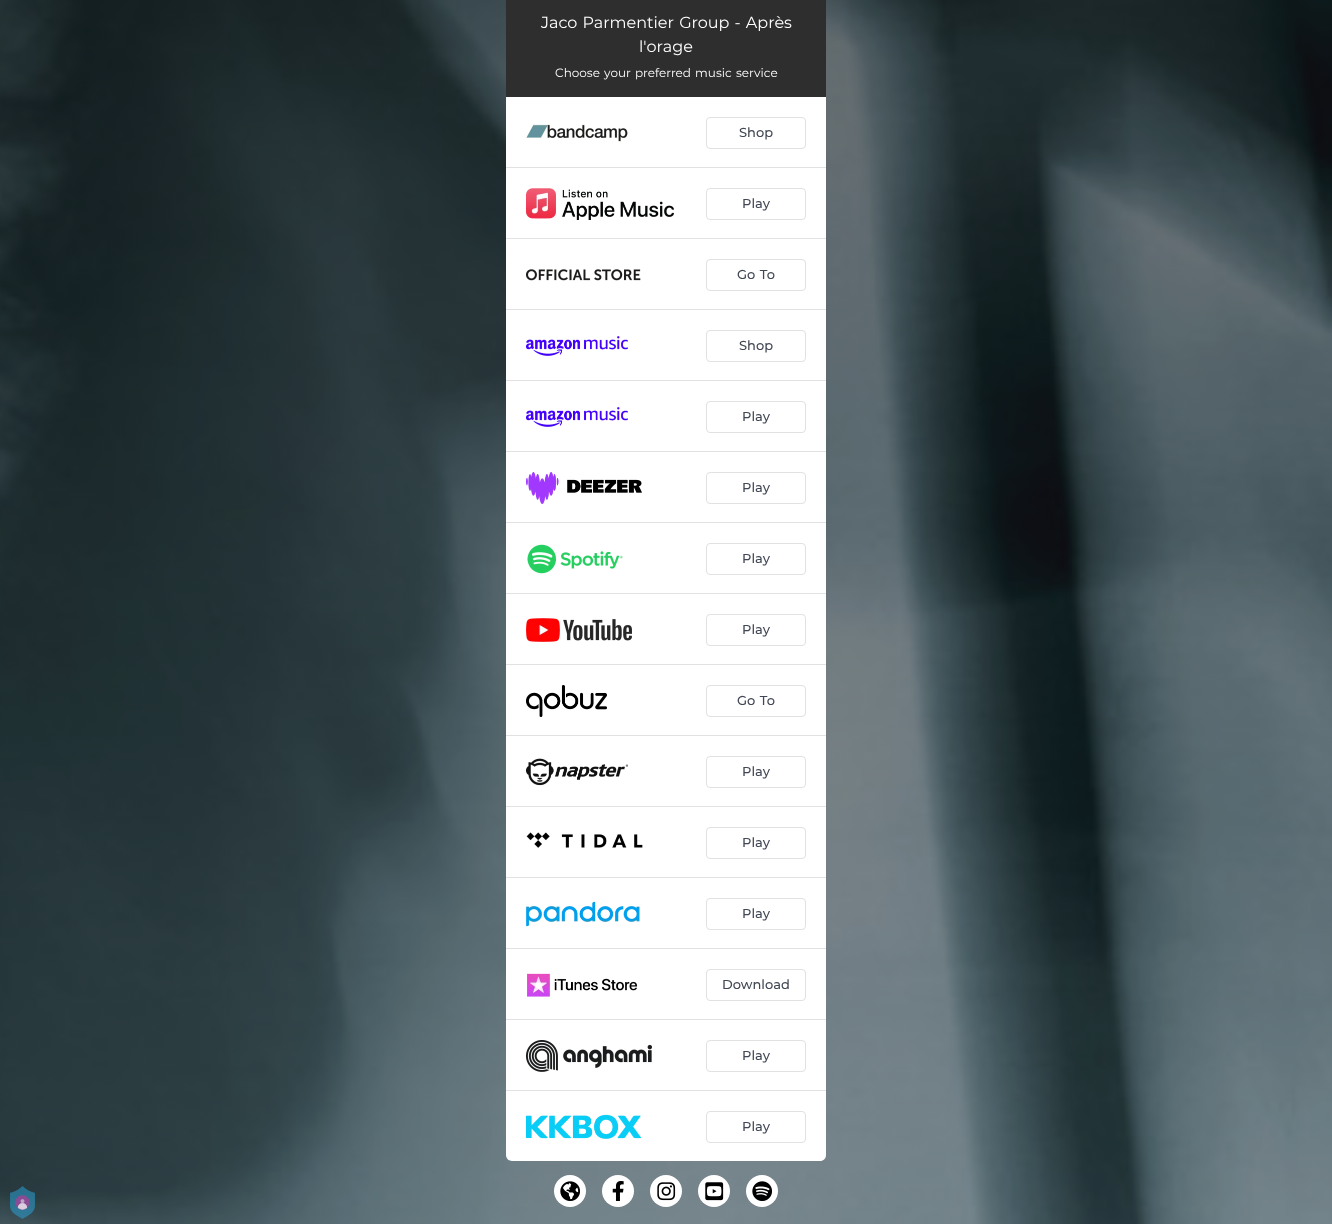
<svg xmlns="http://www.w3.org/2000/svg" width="1332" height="1224">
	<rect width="100%" height="100%" fill="#FFFFFF" />
	<image x="0" y="0" width="1332" height="1224" href="assets/img1.png" />
	<rect x="506" y="0" width="320" height="97" fill="#2E2E2E" />
	<g font-family="Montserrat" font-size="16" fill="#FFFFFF">
		<text x="541" y="28" word-spacing="1">Jaco Parmentier Group - Après</text>
		<text x="639" y="52">l'orage</text>
	</g>
	<text x="555" y="77" word-spacing="1" font-family="Montserrat" font-size="12" fill="#FFFFFF">Choose your preferred music service</text>
	<path d="M506 97H826V1155C826 1158.5 823.5 1161 820 1161H512C508.5 1161 506 1158.5 506 1155Z" fill="#FFFFFF" />
	<rect x="506" y="167" width="320" height="1" fill="#E1E1E4" />
	<image x="526" y="124" width="102" height="18" href="assets/img2.png" />
	<rect x="706.5" y="117.5" width="99" height="31" rx="3.5" fill="none" stroke="#E1E1E4" />
	<text x="739" y="137" font-family="Montserrat" font-size="13" font-weight="500" fill="#414754">Shop</text>
	<rect x="506" y="238" width="320" height="1" fill="#E1E1E4" />
	<image x="526" y="188" width="148" height="32" href="assets/img3.png" />
	<rect x="706.5" y="188.5" width="99" height="31" rx="3.5" fill="none" stroke="#E1E1E4" />
	<text x="742" y="208" font-family="Montserrat" font-size="13" font-weight="500" fill="#414754">Play</text>
	<rect x="506" y="309" width="320" height="1" fill="#E1E1E4" />
	<image x="526" y="269" width="115" height="12" href="assets/img4.png" />
	<rect x="706.5" y="259.5" width="99" height="31" rx="3.5" fill="none" stroke="#E1E1E4" />
	<text x="737" y="279" word-spacing="1" font-family="Montserrat" font-size="13" font-weight="500" fill="#414754">Go To</text>
	<rect x="506" y="380" width="320" height="1" fill="#E1E1E4" />
	<image x="526" y="336" width="102" height="20" href="assets/img5.png" />
	<rect x="706.5" y="330.5" width="99" height="31" rx="3.5" fill="none" stroke="#E1E1E4" />
	<text x="739" y="350" font-family="Montserrat" font-size="13" font-weight="500" fill="#414754">Shop</text>
	<rect x="506" y="451" width="320" height="1" fill="#E1E1E4" />
	<image x="526" y="407" width="102" height="20" href="assets/img5.png" />
	<rect x="706.5" y="401.5" width="99" height="31" rx="3.5" fill="none" stroke="#E1E1E4" />
	<text x="742" y="421" font-family="Montserrat" font-size="13" font-weight="500" fill="#414754">Play</text>
	<rect x="506" y="522" width="320" height="1" fill="#E1E1E4" />
	<image x="526" y="472" width="116" height="32" href="assets/img6.png" />
	<rect x="706.5" y="472.5" width="99" height="31" rx="3.5" fill="none" stroke="#E1E1E4" />
	<text x="742" y="492" font-family="Montserrat" font-size="13" font-weight="500" fill="#414754">Play</text>
	<rect x="506" y="593" width="320" height="1" fill="#E1E1E4" />
	<image x="527" y="544" width="96" height="30" href="assets/img7.png" />
	<rect x="706.5" y="543.5" width="99" height="31" rx="3.5" fill="none" stroke="#E1E1E4" />
	<text x="742" y="563" font-family="Montserrat" font-size="13" font-weight="500" fill="#414754">Play</text>
	<rect x="506" y="664" width="320" height="1" fill="#E1E1E4" />
	<image x="526" y="618" width="106" height="24" href="assets/img8.png" />
	<rect x="706.5" y="614.5" width="99" height="31" rx="3.5" fill="none" stroke="#E1E1E4" />
	<text x="742" y="634" font-family="Montserrat" font-size="13" font-weight="500" fill="#414754">Play</text>
	<rect x="506" y="735" width="320" height="1" fill="#E1E1E4" />
	<image x="526" y="685" width="81" height="32" href="assets/img9.png" />
	<rect x="706.5" y="685.5" width="99" height="31" rx="3.5" fill="none" stroke="#E1E1E4" />
	<text x="737" y="705" word-spacing="1" font-family="Montserrat" font-size="13" font-weight="500" fill="#414754">Go To</text>
	<rect x="506" y="806" width="320" height="1" fill="#E1E1E4" />
	<image x="526" y="758" width="102" height="28" href="assets/img10.png" />
	<rect x="706.5" y="756.5" width="99" height="31" rx="3.5" fill="none" stroke="#E1E1E4" />
	<text x="742" y="776" font-family="Montserrat" font-size="13" font-weight="500" fill="#414754">Play</text>
	<rect x="506" y="877" width="320" height="1" fill="#E1E1E4" />
	<image x="526" y="832" width="117" height="16" href="assets/img11.png" />
	<rect x="706.5" y="827.5" width="99" height="31" rx="3.5" fill="none" stroke="#E1E1E4" />
	<text x="742" y="847" font-family="Montserrat" font-size="13" font-weight="500" fill="#414754">Play</text>
	<rect x="506" y="948" width="320" height="1" fill="#E1E1E4" />
	<image x="526" y="901" width="115" height="26" href="assets/img12.png" />
	<rect x="706.5" y="898.5" width="99" height="31" rx="3.5" fill="none" stroke="#E1E1E4" />
	<text x="742" y="918" font-family="Montserrat" font-size="13" font-weight="500" fill="#414754">Play</text>
	<rect x="506" y="1019" width="320" height="1" fill="#E1E1E4" />
	<image x="527" y="973" width="111" height="24" href="assets/img13.png" />
	<rect x="706.5" y="969.5" width="99" height="31" rx="3.5" fill="none" stroke="#E1E1E4" />
	<text x="722" y="989" font-family="Montserrat" font-size="13" font-weight="500" fill="#414754">Download</text>
	<rect x="506" y="1090" width="320" height="1" fill="#E1E1E4" />
	<image x="526" y="1040" width="126" height="32" href="assets/img14.png" />
	<rect x="706.5" y="1040.5" width="99" height="31" rx="3.5" fill="none" stroke="#E1E1E4" />
	<text x="742" y="1060" font-family="Montserrat" font-size="13" font-weight="500" fill="#414754">Play</text>
	<image x="526" y="1114" width="115" height="25" href="assets/img15.png" />
	<rect x="706.5" y="1111.5" width="99" height="31" rx="3.5" fill="none" stroke="#E1E1E4" />
	<text x="742" y="1131" font-family="Montserrat" font-size="13" font-weight="500" fill="#414754">Play</text>
	<circle cx="570" cy="1191" r="16" fill="#FFFFFF" />
	<image x="560" y="1181" width="20" height="20" href="assets/img16.png" />
	<circle cx="618" cy="1191" r="16" fill="#FFFFFF" />
	<image x="612" y="1181" width="12" height="20" href="assets/img17.png" />
	<circle cx="666" cy="1191" r="16" fill="#FFFFFF" />
	<image x="657" y="1182" width="19" height="19" href="assets/img18.png" />
	<circle cx="714" cy="1191" r="16" fill="#FFFFFF" />
	<image x="705" y="1182" width="19" height="19" href="assets/img19.png" />
	<circle cx="762" cy="1191" r="16" fill="#FFFFFF" />
	<image x="752" y="1181" width="20" height="20" href="assets/img20.png" />
	<image x="10" y="1186" width="25" height="33" href="assets/img21.png" />
</svg>
